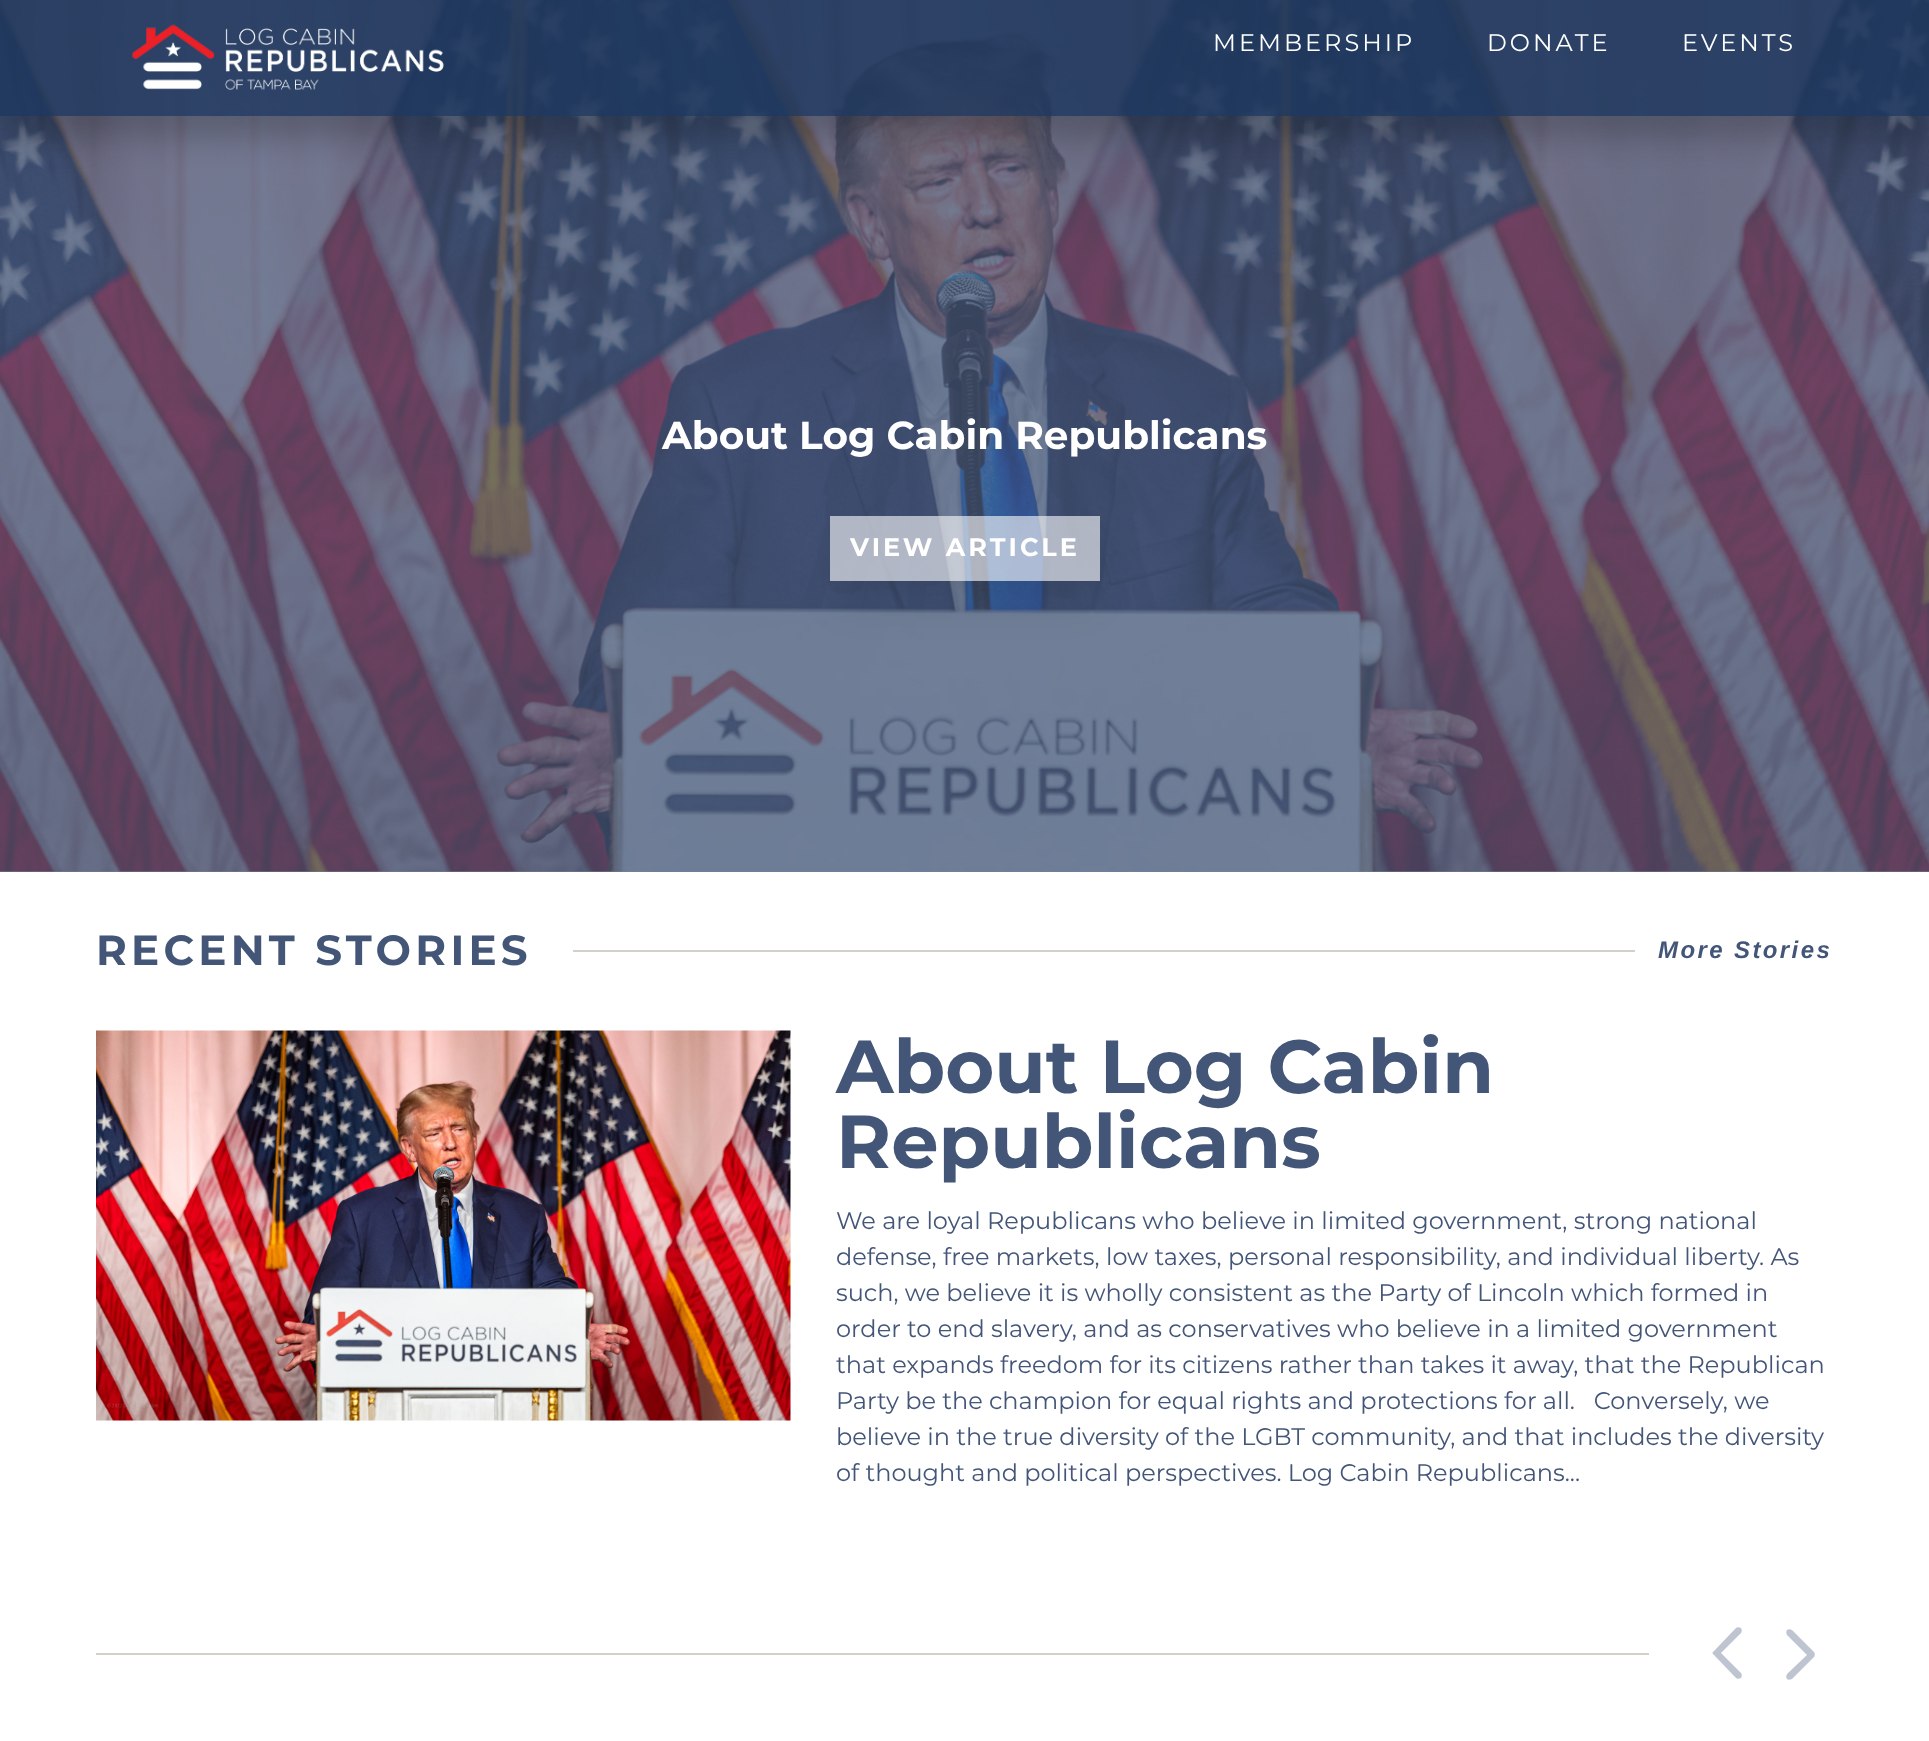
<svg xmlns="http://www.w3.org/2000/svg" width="1929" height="1741">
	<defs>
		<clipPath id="clip1"><path d="M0 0H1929V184H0ZM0 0H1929V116H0Z" clip-rule="evenodd" /></clipPath>
		<clipPath id="clip2"><path d="M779 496H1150V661H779ZM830 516H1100V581H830Z" clip-rule="evenodd" /></clipPath>
	</defs>
	<rect width="100%" height="100%" fill="#FFFFFF" />
	<rect x="0" y="871" width="1929" height="1" fill="#73809A" />
	<image x="0" y="0" width="1929" height="872" href="assets/img2.png" />
	<g clip-path="url(#clip1)">
		<rect x="0" y="23" width="1929" height="115" fill="#000000" fill-opacity="0.2" filter="blur(15px)" />
	</g>
	<rect x="0" y="0" width="1929" height="116" fill="#1B365D" fill-opacity="0.8" />
	<image x="132" y="24" width="312" height="66" href="assets/img1.png" />
	<g font-family="Montserrat" font-size="24" letter-spacing="3" fill="#FFFFFF">
		<text x="1213" y="51">MEMBERSHIP</text>
		<text x="1487" y="51">DONATE</text>
		<text x="1682" y="51">EVENTS</text>
	</g>
	<text x="662" y="449" font-family="Montserrat" font-size="39" font-weight="700" fill="#FFFFFF">About Log Cabin Republicans</text>
	<g clip-path="url(#clip2)">
		<rect x="837" y="554" width="255" height="49" fill="#000000" fill-opacity="0.1" filter="blur(19px)" />
	</g>
	<rect x="830" y="516" width="270" height="65" fill="#FFFFFF" fill-opacity="0.6" />
	<text x="850" y="556" font-family="Montserrat" font-size="25.5" font-weight="700" letter-spacing="3" fill="#FFFFFF">VIEW ARTICLE</text>
	<text x="96" y="965" font-family="Montserrat" font-size="42" font-weight="700" letter-spacing="4.25" fill="#445678">RECENT STORIES</text>
	<rect x="573" y="950" width="1062" height="2" fill="#D3D0C7" />
	<text x="1658" y="958" font-family="Liberation Sans" font-size="24" font-weight="700" font-style="italic" letter-spacing="2.4" fill="#445678">More Stories</text>
	<image x="96" y="1030" width="695" height="391" href="assets/img3.png" />
	<g font-family="Montserrat" font-size="75" font-weight="700" fill="#445678">
		<text x="836" y="1093">About Log Cabin</text>
		<text x="836" y="1168">Republicans</text>
	</g>
	<g font-family="Montserrat" font-size="24" fill="#445678">
		<text x="836" y="1229">We are loyal Republicans who believe in limited government, strong national</text>
		<text x="836" y="1265">defense, free markets, low taxes, personal responsibility, and individual liberty. As</text>
		<text x="836" y="1301">such, we believe it is wholly consistent as the Party of Lincoln which formed in</text>
		<text x="836" y="1337">order to end slavery, and as conservatives who believe in a limited government</text>
		<text x="836" y="1373">that expands freedom for its citizens rather than takes it away, that the Republican</text>
		<text x="836" y="1409" xml:space="preserve">Party be the champion for equal rights and protections for all.   Conversely, we</text>
		<text x="836" y="1445">believe in the true diversity of the LGBT community, and that includes the diversity</text>
		<text x="836" y="1481">of thought and political perspectives. Log Cabin Republicans...</text>
	</g>
	<rect x="96" y="1653" width="1553" height="2" fill="#D3D0C7" />
	<path d="M1714 1655C1712 1654 1712 1652 1714 1651L1736 1628C1737 1627 1739 1627 1741 1628C1742 1630 1742 1632 1741 1633L1721 1653L1741 1673C1742 1674 1742 1676 1741 1678C1739 1679 1737 1679 1736 1678Z" fill="#BEC4D0" />
	<path d="M1814 1652C1815 1653 1815 1656 1814 1657L1792 1679C1790 1680 1788 1680 1787 1679C1786 1678 1786 1676 1787 1674L1807 1655L1787 1635C1786 1633 1786 1631 1787 1630C1788 1629 1790 1629 1792 1630Z" fill="#BEC4D0" />
</svg>
